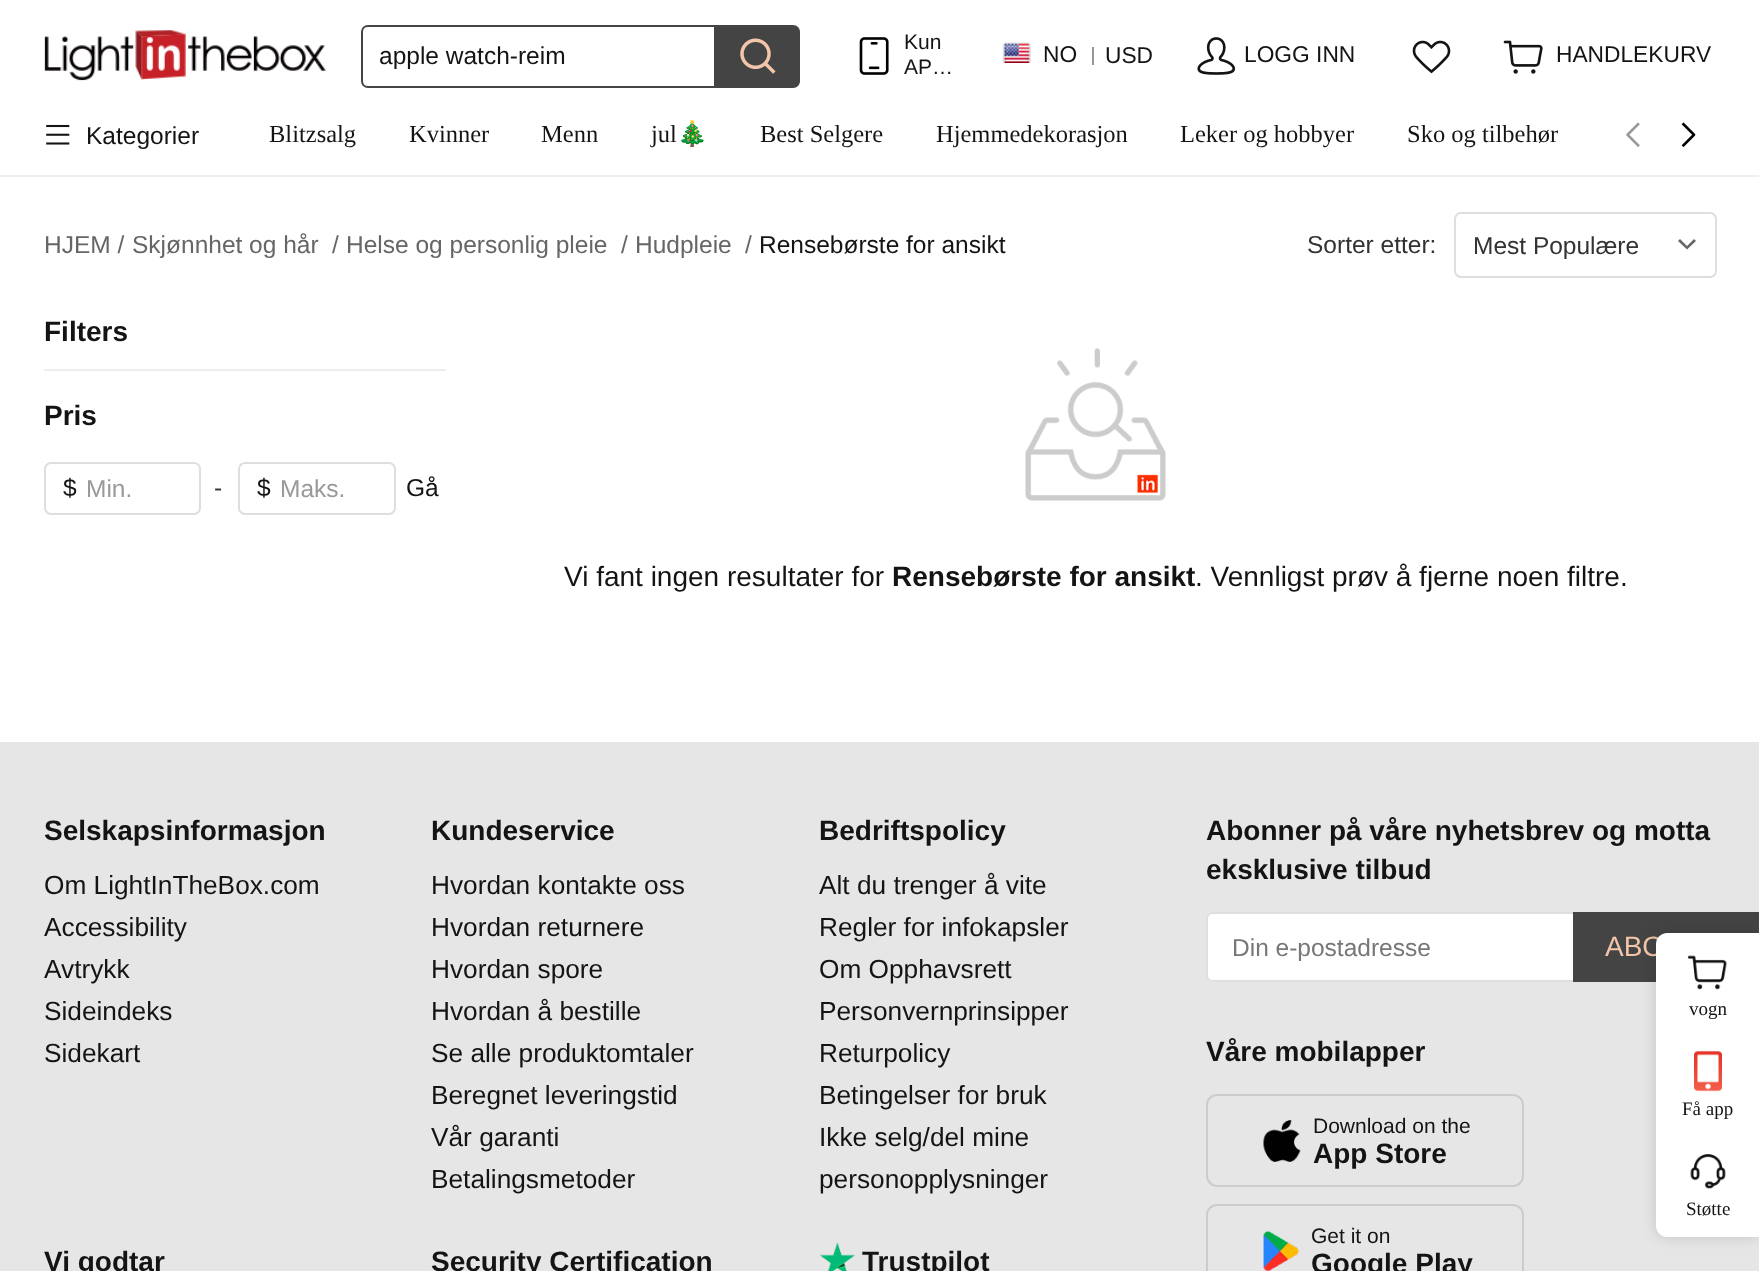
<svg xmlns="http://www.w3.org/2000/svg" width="1759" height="1271">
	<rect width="100%" height="100%" fill="#FFFFFF" />
	<rect x="0" y="175" width="1759" height="2" fill="#EEEEEE" />
	<image x="44" y="30" width="282" height="51" href="assets/img1.png" />
	<path d="M368 26H715V87H368C364.5 87 362 84.5 362 81V32C362 28.5 364.5 26 368 26Z" fill="none" stroke="#444444" stroke-width="2" />
	<text x="379" y="64" font-family="Liberation Sans" font-size="24.5" fill="#141414">apple watch-reim</text>
	<path d="M716 25H793C797 25 800 28 800 32V81C800 85 797 88 793 88H716Z" fill="#444444" />
	<image x="740" y="38" width="36" height="36" href="assets/img2.png" />
	<image x="859" y="37" width="30" height="38" href="assets/img3.png" />
	<g font-family="Liberation Sans" font-size="21" fill="#141414">
		<text x="904" y="49">Kun</text>
		<text x="904" y="74">AP…</text>
	</g>
	<image x="1002" y="42" width="29" height="21" href="assets/img4.png" />
	<text x="1043" y="62" font-family="Liberation Sans" font-size="22.75" fill="#141414">NO</text>
	<rect x="1092" y="47" width="2" height="18" fill="#979797" />
	<text x="1105" y="63" font-family="Liberation Sans" font-size="22.75" fill="#141414">USD</text>
	<image x="1197" y="37" width="39" height="38" href="assets/img5.png" />
	<text x="1244" y="62" font-family="Liberation Sans" font-size="22.75" fill="#141414">LOGG INN</text>
	<image x="1412" y="40" width="39" height="34" href="assets/img6.png" />
	<image x="1503" y="40" width="40" height="34" href="assets/img7.png" />
	<text x="1556" y="62" font-family="Liberation Sans" font-size="22.75" fill="#141414">HANDLEKURV</text>
	<image x="46" y="124" width="24" height="21" href="assets/img8.png" />
	<text x="86" y="144" font-family="Liberation Sans" font-size="24.5" fill="#141414">Kategorier</text>
	<g font-family="Liberation Serif" font-size="24.5" fill="#141414">
		<text x="269" y="142">Blitzsalg</text>
		<text x="409" y="142">Kvinner</text>
		<text x="541" y="142">Menn</text>
		<text x="651" y="142">jul</text>
	</g>
	<text x="677" y="142" font-family="Noto Color Emoji" font-size="24.5" fill="#141414">🎄</text>
	<g font-family="Liberation Serif" font-size="24.5" fill="#141414">
		<text x="760" y="142">Best Selgere</text>
		<text x="936" y="142">Hjemmedekorasjon</text>
		<text x="1180" y="142">Leker og hobbyer</text>
		<text x="1407" y="142">Sko og tilbehør</text>
	</g>
	<image x="1626" y="122" width="14" height="25" href="assets/img9.png" />
	<image x="1681" y="122" width="15" height="25" href="assets/img10.png" />
	<g font-family="Liberation Sans" font-size="24.5" fill="#666666">
		<text x="44" y="253">HJEM /</text>
		<text x="132" y="253">Skjønnhet og hår</text>
		<text x="332" y="253">/</text>
		<text x="346" y="253">Helse og personlig pleie</text>
		<text x="621" y="253">/</text>
		<text x="635" y="253">Hudpleie</text>
		<text x="745" y="253">/</text>
	</g>
	<text x="759" y="253" font-family="Liberation Sans" font-size="24.5" fill="#141414">Rensebørste for ansikt</text>
	<text x="1307" y="253" font-family="Liberation Sans" font-size="24.5" fill="#333333">Sorter etter:</text>
	<rect x="1455" y="213" width="261" height="64" rx="6" fill="none" stroke="#DEDEDE" stroke-width="2" />
	<text x="1473" y="254" font-family="Liberation Sans" font-size="24.5" fill="#333333">Mest Populære</text>
	<path d="M1678 241L1680 239L1687 246L1694 239L1696 241L1687 249.5Z" fill="#666666" />
	<rect x="44" y="369" width="402" height="2" fill="#EEEEEE" />
	<g font-family="Liberation Sans" font-size="28" font-weight="700" fill="#141414">
		<text x="44" y="341">Filters</text>
		<text x="44" y="425">Pris</text>
	</g>
	<rect x="45" y="463" width="155" height="51" rx="6" fill="none" stroke="#DEDEDE" stroke-width="2" />
	<text x="63" y="496" font-family="Liberation Sans" font-size="24.5" fill="#141414">$</text>
	<text x="86" y="497" font-family="Liberation Sans" font-size="24.5" fill="#999999">Min.</text>
	<text x="214" y="496" font-family="Liberation Sans" font-size="24.5" fill="#333333">-</text>
	<rect x="239" y="463" width="156" height="51" rx="6" fill="none" stroke="#DEDEDE" stroke-width="2" />
	<text x="257" y="496" font-family="Liberation Sans" font-size="24.5" fill="#141414">$</text>
	<text x="280" y="497" font-family="Liberation Sans" font-size="24.5" fill="#999999">Maks.</text>
	<text x="406" y="496" font-family="Liberation Sans" font-size="24.5" fill="#141414">Gå</text>
	<image x="1025" y="348" width="141" height="153" href="assets/img11.png" />
	<text x="564" y="586" font-family="Liberation Sans" font-size="28" fill="#141414">Vi fant ingen resultater for</text>
	<text x="892" y="586" font-family="Liberation Sans" font-size="28" font-weight="700" fill="#141414">Rensebørste for ansikt</text>
	<text x="1195" y="586" font-family="Liberation Sans" font-size="28" fill="#141414">. Vennligst prøv å fjerne noen filtre.</text>
	<rect x="0" y="742" width="1759" height="529" fill="#E6E6E6" />
	<text x="44" y="840" font-family="Liberation Sans" font-size="28" font-weight="700" fill="#141414">Selskapsinformasjon</text>
	<g font-family="Liberation Sans" font-size="26.25" fill="#141414">
		<text x="44" y="894">Om LightInTheBox.com</text>
		<text x="44" y="936">Accessibility</text>
		<text x="44" y="978">Avtrykk</text>
		<text x="44" y="1020">Sideindeks</text>
		<text x="44" y="1062">Sidekart</text>
	</g>
	<text x="431" y="840" font-family="Liberation Sans" font-size="28" font-weight="700" fill="#141414">Kundeservice</text>
	<g font-family="Liberation Sans" font-size="26.25" fill="#141414">
		<text x="431" y="894">Hvordan kontakte oss</text>
		<text x="431" y="936">Hvordan returnere</text>
		<text x="431" y="978">Hvordan spore</text>
		<text x="431" y="1020">Hvordan å bestille</text>
		<text x="431" y="1062">Se alle produktomtaler</text>
		<text x="431" y="1104">Beregnet leveringstid</text>
		<text x="431" y="1146">Vår garanti</text>
		<text x="431" y="1188">Betalingsmetoder</text>
	</g>
	<text x="819" y="840" font-family="Liberation Sans" font-size="28" font-weight="700" fill="#141414">Bedriftspolicy</text>
	<g font-family="Liberation Sans" font-size="26.25" fill="#141414">
		<text x="819" y="894">Alt du trenger å vite</text>
		<text x="819" y="936">Regler for infokapsler</text>
		<text x="819" y="978">Om Opphavsrett</text>
		<text x="819" y="1020">Personvernprinsipper</text>
		<text x="819" y="1062">Returpolicy</text>
		<text x="819" y="1104">Betingelser for bruk</text>
		<text x="819" y="1146">Ikke selg/del mine</text>
		<text x="819" y="1188">personopplysninger</text>
	</g>
	<g font-family="Liberation Sans" font-size="28" font-weight="700" fill="#141414">
		<text x="44" y="1271">Vi godtar</text>
		<text x="431" y="1271">Security Certification</text>
	</g>
	<image x="820" y="1242" width="35" height="29" href="assets/img12.png" />
	<g font-family="Liberation Sans" font-size="28" font-weight="700" fill="#141414">
		<text x="862" y="1271">Trustpilot</text>
		<text x="1206" y="840">Abonner på våre nyhetsbrev og motta</text>
		<text x="1206" y="879">eksklusive tilbud</text>
	</g>
	<path d="M1213 912H1573V982H1213C1209 982 1206 979 1206 975V919C1206 915 1209 912 1213 912Z" fill="#FFFFFF" />
	<path d="M1213 912H1573V982H1213C1209 982 1206 979 1206 975V919C1206 915 1209 912 1213 912ZM1213 914H1573V980H1213C1210 980 1208 978 1208 975V919C1208 916 1210 914 1213 914Z" fill="#DEDEDE" fill-rule="evenodd" />
	<text x="1232" y="956" font-family="Liberation Sans" font-size="24.5" fill="#777777">Din e-postadresse</text>
	<rect x="1573" y="912" width="186" height="70" fill="#444444" />
	<text x="1605" y="956" font-family="Liberation Sans" font-size="28" fill="#F3C5A9">ABO</text>
	<text x="1206" y="1061" font-family="Liberation Sans" font-size="28" font-weight="700" fill="#141414">Våre mobilapper</text>
	<rect x="1207" y="1095" width="316" height="91" rx="10" fill="none" stroke="#CCCCCC" stroke-width="2" />
	<image x="1263" y="1120" width="38" height="42" href="assets/img13.png" />
	<text x="1313" y="1133" font-family="Liberation Sans" font-size="21" fill="#141414">Download on the</text>
	<text x="1313" y="1163" font-family="Liberation Sans" font-size="28" font-weight="700" fill="#141414">App Store</text>
	<rect x="1207" y="1205" width="316" height="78" rx="10" fill="none" stroke="#CCCCCC" stroke-width="2" />
	<image x="1263" y="1231" width="36" height="40" href="assets/img14.png" />
	<text x="1311" y="1243" font-family="Liberation Sans" font-size="21" fill="#141414">Get it on</text>
	<text x="1311" y="1273" font-family="Liberation Sans" font-size="28" font-weight="700" fill="#141414">Google Play</text>
	<rect x="1656" y="933" width="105" height="304" rx="11" fill="#000000" fill-opacity="0.15" filter="blur(7px)" />
	<path d="M1667 933H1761V1237H1667C1661 1237 1656 1232 1656 1226V944C1656 938 1661 933 1667 933Z" fill="#FFFFFF" />
	<image x="1687" y="955" width="40" height="35" href="assets/img15.png" />
	<text x="1689" y="1015" font-family="Liberation Serif" font-size="19" fill="#141414">vogn</text>
	<image x="1694" y="1050" width="28" height="42" href="assets/img16.png" />
	<text x="1682" y="1115" font-family="Liberation Serif" font-size="19" fill="#141414">Få app</text>
	<image x="1690" y="1154" width="36" height="35" href="assets/img17.png" />
	<text x="1686" y="1215" font-family="Liberation Serif" font-size="19" fill="#141414">Støtte</text>
</svg>
